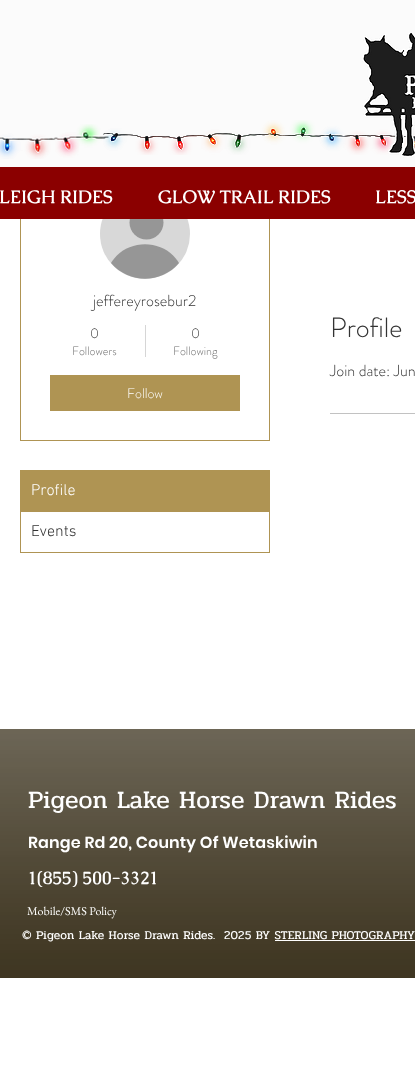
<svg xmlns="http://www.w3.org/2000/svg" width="415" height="1090">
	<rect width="100%" height="100%" fill="#FFFFFF" />
	<rect x="20.5" y="159.5" width="249" height="281" fill="none" stroke="#AF9453" />
	<rect x="0" y="0" width="415" height="167" fill="#FBFBFB" />
	<image x="0" y="124" width="109" height="35" href="assets/img2.png" />
	<image x="103" y="120" width="312" height="35" href="assets/img3.png" />
	<image x="362" y="33" width="53" height="125" href="assets/img1.png" />
	<circle cx="145" cy="234" r="45" fill="#D8D8D8" />
	<circle cx="146.5" cy="222.5" r="17" fill="#969696" />
	<rect x="0" y="167" width="415" height="52" fill="#8B0000" />
	<g font-family="Caudex" font-size="18" font-weight="700" fill="#FFFFFF">
		<text x="-1" y="203">LEIGH RIDES</text>
		<text x="158" y="203">GLOW TRAIL RIDES</text>
		<text x="375" y="203">LESS</text>
	</g>
	<path d="M179 263C161 284 129 284 111 263C126 238 164 238 179 263Z" fill="#969696" />
	<text x="93" y="306" font-family="'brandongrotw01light'" font-size="16" font-weight="300" fill="#333333">jeffereyrosebur2</text>
	<text x="90" y="338" font-family="'brandongrotw01light'" font-size="14" font-weight="300" fill="#333333">0</text>
	<text x="72" y="355" font-family="'brandongrotw01light'" font-size="12" font-weight="300" fill="#707070">Followers</text>
	<rect x="145" y="325" width="1" height="32" fill="#D6D6D6" />
	<text x="191" y="338" font-family="'brandongrotw01light'" font-size="14" font-weight="300" fill="#333333">0</text>
	<text x="173" y="355" font-family="'brandongrotw01light'" font-size="12" font-weight="300" fill="#707070">Following</text>
	<rect x="50" y="375" width="190" height="36" fill="#AF9453" />
	<text x="127" y="398" font-family="'brandongrotw01light'" font-size="14" font-weight="300" fill="#FFFFFF">Follow</text>
	<rect x="20.5" y="470.5" width="249" height="82" fill="none" stroke="#AF9453" />
	<rect x="21" y="471" width="248" height="41" fill="#AF9453" />
	<text x="31" y="495" font-family="'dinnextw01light'" font-size="16" font-weight="300" fill="#FFFFFF">Profile</text>
	<text x="31" y="536" font-family="'dinnextw01light'" font-size="16" font-weight="300" fill="#333333">Events</text>
	<text x="330" y="337" font-family="'brandongrotw01light'" font-size="28" font-weight="300" fill="#333333">Profile</text>
	<text x="330" y="376" font-family="'brandongrotw01light'" font-size="16" font-weight="300" fill="#333333">Join date: Jun</text>
	<rect x="330" y="413" width="85" height="1" fill="#C2C2C2" />
	<rect x="0" y="729" width="415" height="249" fill="#3A311C" />
	<image x="0" y="729" width="415" height="249" href="assets/img4.png" />
	<text x="28" y="808" font-family="Pridi" font-size="25" letter-spacing="0.25" fill="#FFFFFF">Pigeon Lake Horse Drawn Rides</text>
	<text x="28" y="848" font-family="Poppins" font-size="16" font-weight="600" letter-spacing="0.15" fill="#FFFFFF">Range Rd 20, County Of Wetaskiwin</text>
	<text x="28" y="884" font-family="Caudex" font-size="18" font-weight="700" fill="#FFFFFF">1(855) 500-3321</text>
	<text x="27" y="915" font-family="EB Garamond" font-size="12" fill="#FFFFFF">Mobile/SMS Policy</text>
	<text x="22" y="939" font-family="Pridi" font-size="12" letter-spacing="0.12" fill="#FFFFFF" xml:space="preserve">© Pigeon Lake Horse Drawn Rides.  2025 BY STERLING PHOTOGRAPHY</text>
	<rect x="275" y="940" width="140" height="1" fill="#FFFFFF" />
</svg>
